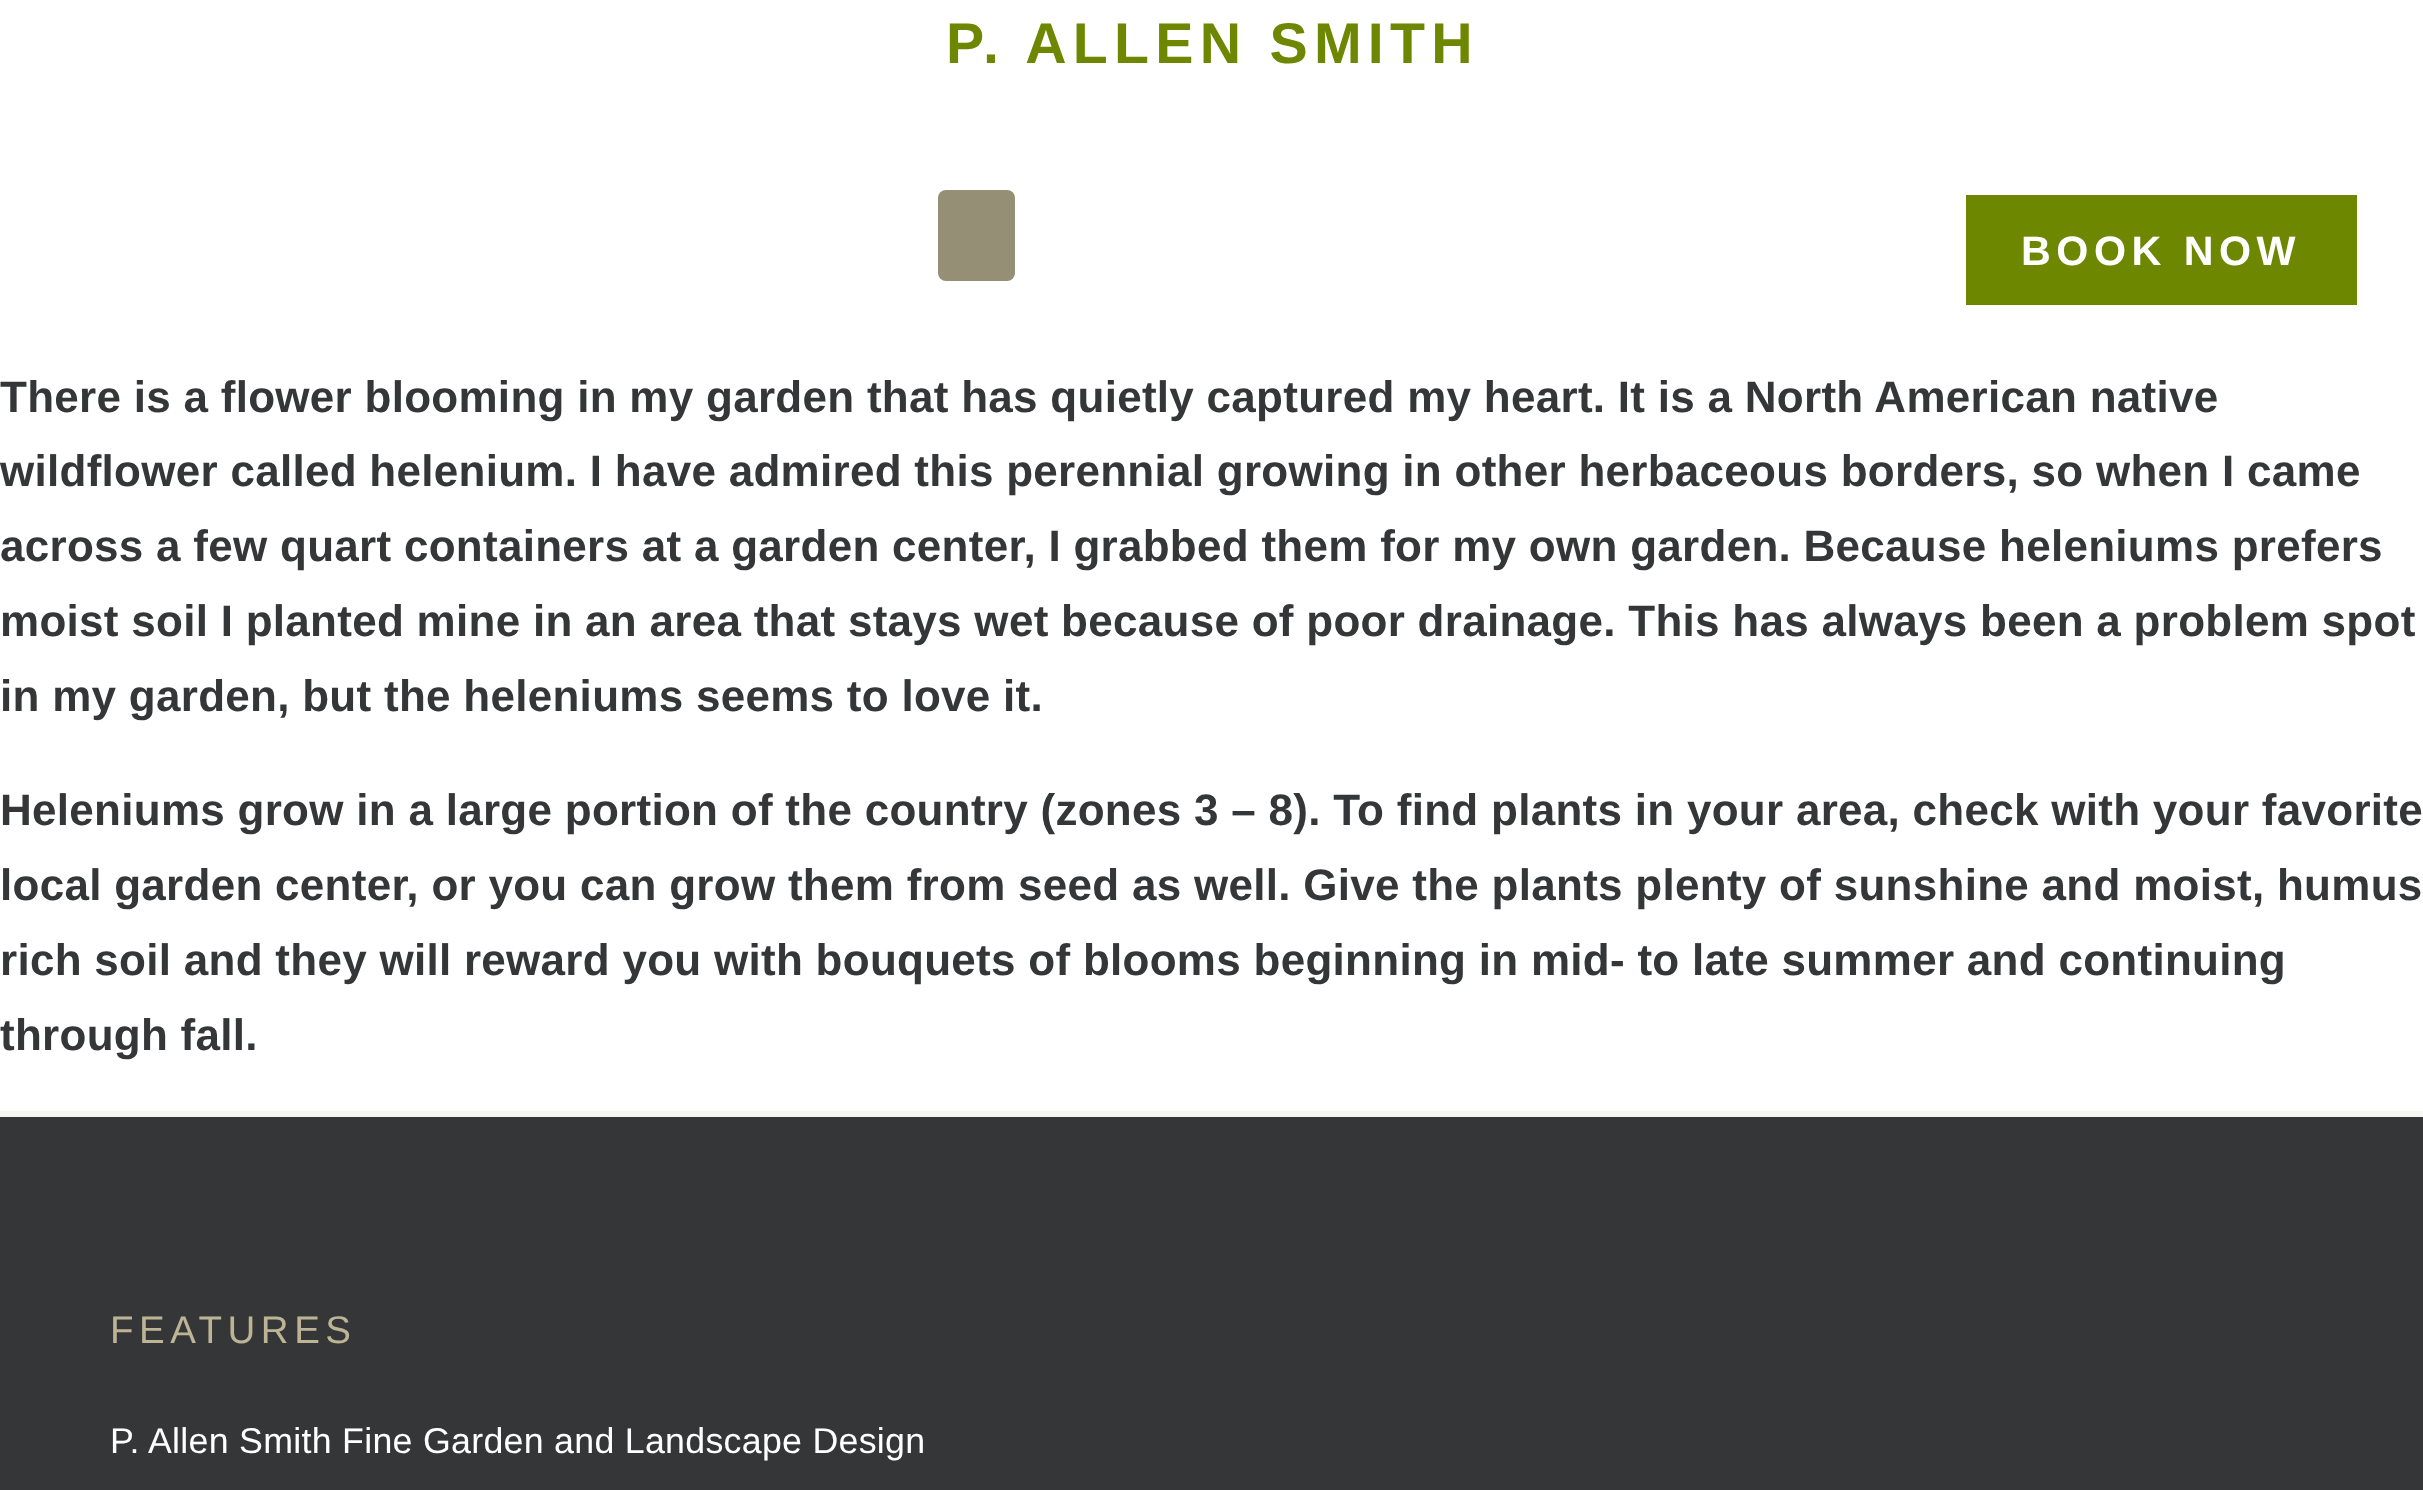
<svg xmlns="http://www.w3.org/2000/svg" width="2423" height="1490">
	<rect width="100%" height="100%" fill="#FFFFFF" />
	<text x="946" y="63" font-family="Liberation Sans" font-size="57.25" font-weight="700" letter-spacing="6.25" fill="#6D8700">P. ALLEN SMITH</text>
	<rect x="938" y="190" width="77" height="91" rx="8" fill="#958F76" />
	<rect x="1966" y="195" width="391" height="110" fill="#6D8700" />
	<text x="2021" y="265" font-family="Liberation Sans" font-size="41.25" font-weight="700" letter-spacing="5.5" fill="#FFFFFF">BOOK NOW</text>
	<g font-family="Liberation Sans" font-size="44" font-weight="700" letter-spacing="0.28" fill="#343638">
		<text x="0" y="412">There is a flower blooming in my garden that has quietly captured my heart. It is a North American native</text>
		<text x="0" y="486">wildflower called helenium. I have admired this perennial growing in other herbaceous borders, so when I came</text>
		<text x="0" y="561">across a few quart containers at a garden center, I grabbed them for my own garden. Because heleniums prefers</text>
		<text x="0" y="636">moist soil I planted mine in an area that stays wet because of poor drainage. This has always been a problem spot</text>
		<text x="0" y="711">in my garden, but the heleniums seems to love it.</text>
		<text x="0" y="825">Heleniums grow in a large portion of the country (zones 3 – 8). To find plants in your area, check with your favorite</text>
		<text x="0" y="900">local garden center, or you can grow them from seed as well. Give the plants plenty of sunshine and moist, humus</text>
		<text x="0" y="975">rich soil and they will reward you with bouquets of blooms beginning in mid- to late summer and continuing</text>
		<text x="0" y="1050">through fall.</text>
	</g>
	<rect x="0" y="1117" width="2423" height="373" fill="#343638" />
	<rect x="0" y="1111" width="2423" height="6" fill="#F7F6F1" />
	<text x="110" y="1343" font-family="Liberation Sans" font-size="38.5" letter-spacing="5.5" fill="#BCB495">FEATURES</text>
	<text x="110" y="1453" font-family="Liberation Sans" font-size="35.75" letter-spacing="0.28" fill="#FFFFFF">P. Allen Smith Fine Garden and Landscape Design</text>
</svg>
